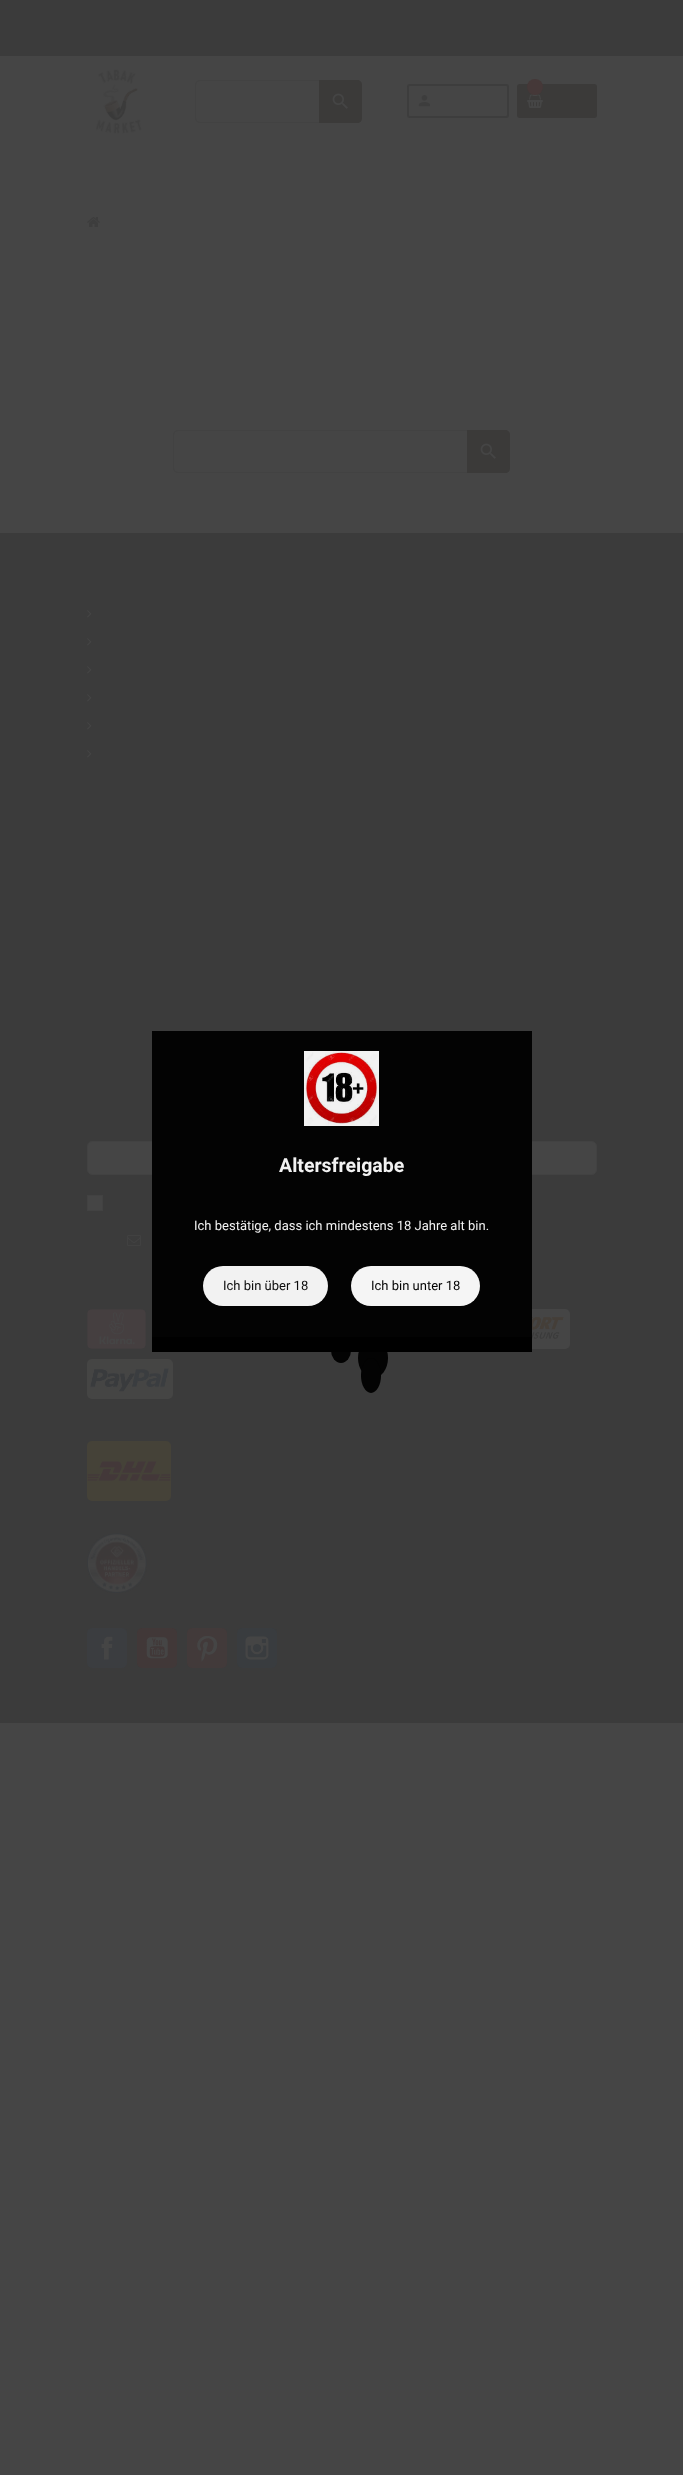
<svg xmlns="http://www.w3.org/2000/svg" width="683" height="2475">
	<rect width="100%" height="100%" fill="#454545" />
	<rect x="0" y="0" width="683" height="56" fill="#3B3B3B" />
	<image x="96" y="69" width="46" height="65" href="assets/img1.png" />
	<rect x="195.5" y="80.5" width="165" height="42" rx="4.5" fill="none" stroke="#424242" />
	<path d="M319 80H357C360 80 362 82 362 85V118C362 121 360 123 357 123H319Z" fill="#3B3A39" />
	<image x="332" y="93" width="16" height="16" href="assets/img2.png" />
	<rect x="408" y="85" width="100" height="32" rx="2" fill="none" stroke="#3D3D3D" stroke-width="2" />
	<image x="418" y="95" width="12" height="12" href="assets/img3.png" />
	<rect x="517" y="84" width="80" height="34" rx="3" fill="#3B3A39" />
	<image x="527" y="94" width="16" height="14" href="assets/img4.png" />
	<circle cx="535" cy="87" r="8" fill="#453838" />
	<image x="87" y="217" width="13" height="10" href="assets/img5.png" />
	<rect x="173.5" y="430.5" width="335" height="42" rx="4.5" fill="none" stroke="#424242" />
	<path d="M467 430H505C508 430 510 432 510 435V468C510 471 508 473 505 473H467Z" fill="#3B3A39" />
	<image x="480" y="443" width="16" height="16" href="assets/img2.png" />
	<rect x="0" y="533" width="683" height="1190" fill="#3B3B3B" />
	<image x="87" y="610" width="5" height="8" href="assets/img6.png" />
	<image x="87" y="638" width="5" height="8" href="assets/img6.png" />
	<image x="87" y="666" width="5" height="8" href="assets/img6.png" />
	<image x="87" y="694" width="5" height="8" href="assets/img6.png" />
	<image x="87" y="722" width="5" height="8" href="assets/img6.png" />
	<image x="87" y="750" width="5" height="8" href="assets/img6.png" />
	<rect x="87.5" y="1141.5" width="509" height="33" rx="4.5" fill="#454545" stroke="#424242" />
	<rect x="87.5" y="1195.5" width="15" height="15" fill="#454545" stroke="#424242" />
	<image x="127" y="1235" width="14" height="11" href="assets/img7.png" />
	<image x="159" y="1309" width="60" height="28" href="assets/img10.png" />
	<image x="232" y="1309" width="60" height="28" href="assets/img11.png" />
	<image x="305" y="1309" width="166" height="28" href="assets/img12.png" />
	<image x="484" y="1309" width="86" height="40" href="assets/img13.png" />
	<rect x="152" y="1031" width="380" height="306" fill="#000000" fill-opacity="0.95" />
	<image x="304" y="1051" width="75" height="75" href="assets/img8.png" />
	<text x="279" y="1172" font-family="Roboto" font-size="19.5" font-weight="700" fill="#F2F2F2">Altersfreigabe</text>
	<text x="194" y="1230" font-family="Roboto" font-size="13" fill="#F2F2F2">Ich bestätige, dass ich mindestens 18 Jahre alt bin.</text>
	<rect x="203" y="1266" width="125" height="40" rx="20" fill="#F2F2F2" />
	<text x="223" y="1290" font-family="Roboto" font-size="13" fill="#0C0C0C">Ich bin über 18</text>
	<rect x="351" y="1266" width="129" height="40" rx="20" fill="#F5F5F5" />
	<text x="371" y="1290" font-family="Roboto" font-size="13" fill="#030303">Ich bin unter 18</text>
	<rect x="152" y="1337" width="380" height="15" fill="#000000" />
	<ellipse cx="341" cy="1350.5" rx="10" ry="12.5" fill="#000000" fill-opacity="0.95" />
	<ellipse cx="373" cy="1358" rx="15" ry="20" fill="#000000" fill-opacity="0.95" />
	<ellipse cx="371" cy="1375.5" rx="10" ry="17.5" fill="#030303" />
	<image x="87" y="1309" width="59" height="40" href="assets/img9.png" />
	<image x="87" y="1359" width="86" height="40" href="assets/img14.png" />
	<image x="87" y="1441" width="84" height="60" href="assets/img15.png" />
	<image x="87" y="1533" width="60" height="60" href="assets/img16.png" />
	<rect x="87" y="1628" width="40" height="40" rx="5" fill="#3B3D40" />
	<image x="101" y="1636" width="12" height="24" href="assets/img17.png" />
	<rect x="137" y="1628" width="40" height="40" rx="5" fill="#413838" />
	<image x="146" y="1637" width="22" height="22" href="assets/img18.png" />
	<rect x="187" y="1628" width="40" height="40" rx="5" fill="#423A3A" />
	<image x="197" y="1636" width="21" height="26" href="assets/img19.png" />
	<rect x="237" y="1628" width="40" height="40" rx="5" fill="#393C3F" />
	<image x="245" y="1636" width="24" height="24" href="assets/img20.png" />
</svg>
